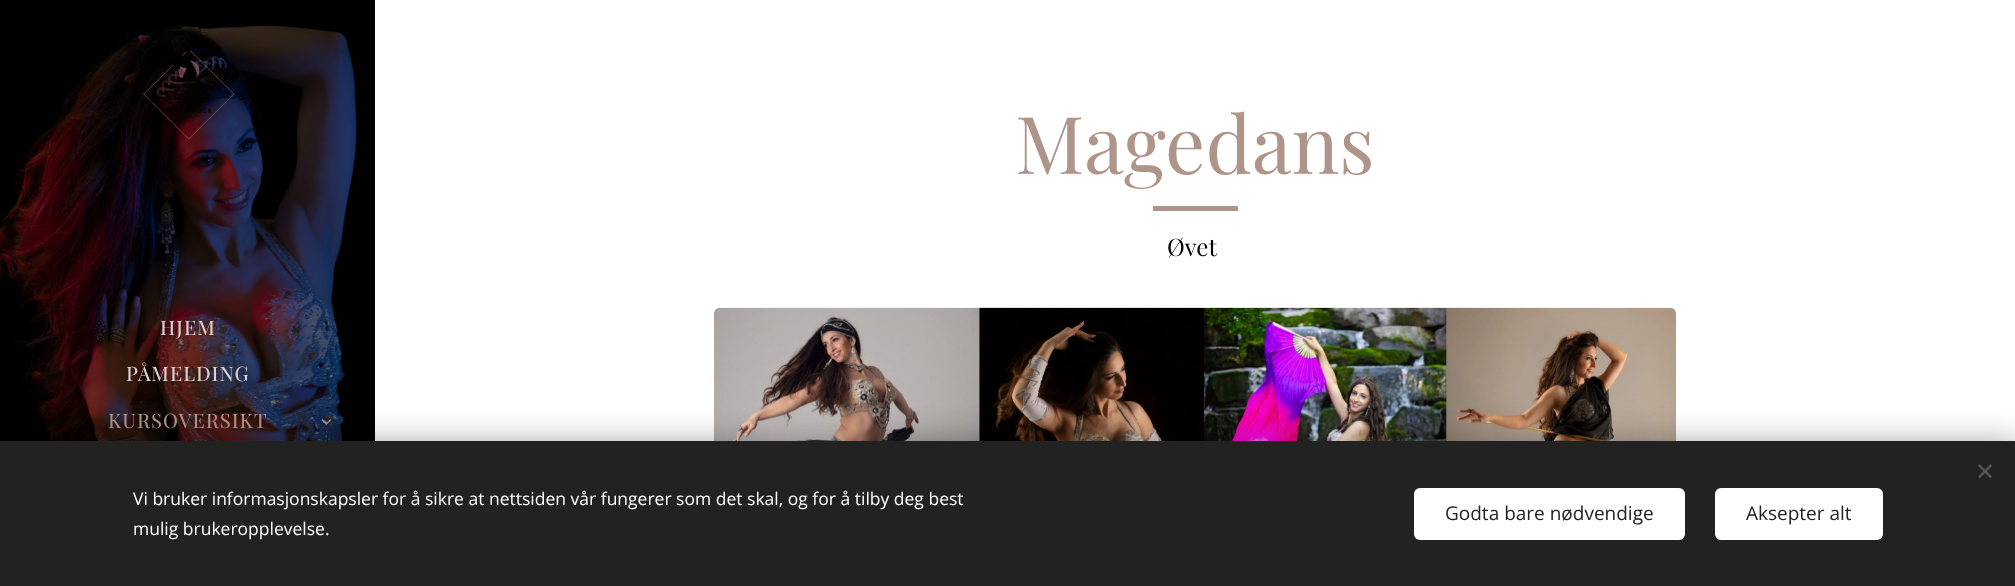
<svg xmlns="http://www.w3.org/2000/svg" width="2015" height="586">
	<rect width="100%" height="100%" fill="#FFFFFF" />
	<text x="1015" y="174" font-family="Playfair Display" font-size="79.75" fill="#AF948A">Magedans</text>
	<rect x="1153" y="206" width="85" height="5" fill="#AF948A" />
	<text x="1167" y="256" font-family="Playfair Display" font-size="24" fill="#000000">Øvet</text>
	<image x="714" y="307" width="962" height="134" href="assets/img1.png" />
	<image x="0" y="0" width="375" height="441" href="assets/img2.png" />
	<image x="122" y="44" width="128" height="96" href="assets/img3.png" />
	<g font-family="'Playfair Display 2'" font-size="20" letter-spacing="1" fill="#DBD1D2">
		<text x="160" y="335">HJEM</text>
		<text x="126" y="381">PÅMELDING</text>
	</g>
	<text x="108" y="428" font-family="'Playfair Display 2'" font-size="20" letter-spacing="1" fill="#AF948A">KURSOVERSIKT</text>
	<image x="321" y="419" width="11" height="6" href="assets/img4.png" />
	<rect x="0" y="441" width="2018" height="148" fill="#000000" fill-opacity="0.33" filter="blur(15.5px)" />
	<rect x="0" y="441" width="2015" height="145" fill="#222222" />
	<path d="M1978 476.5L1990.5 464L1992 466L1979.5 478.5Z" fill="#555555" />
	<path d="M1979.5 464L1992 476.5L1990.5 478.5L1978 466Z" fill="#555555" />
	<g font-family="Open Sans" font-size="17.5" fill="#FFFFFF">
		<text x="133" y="505">Vi bruker informasjonskapsler for å sikre at nettsiden vår fungerer som det skal, og for å tilby deg best</text>
		<text x="133" y="535">mulig brukeropplevelse.</text>
	</g>
	<rect x="1414" y="488" width="271" height="52" rx="6" fill="#FFFFFF" />
	<text x="1445" y="520" font-family="Open Sans" font-size="19" fill="#222222">Godta bare nødvendige</text>
	<rect x="1715" y="488" width="168" height="52" rx="6" fill="#FFFFFF" />
	<text x="1746" y="520" font-family="Open Sans" font-size="19" fill="#222222">Aksepter alt</text>
</svg>
